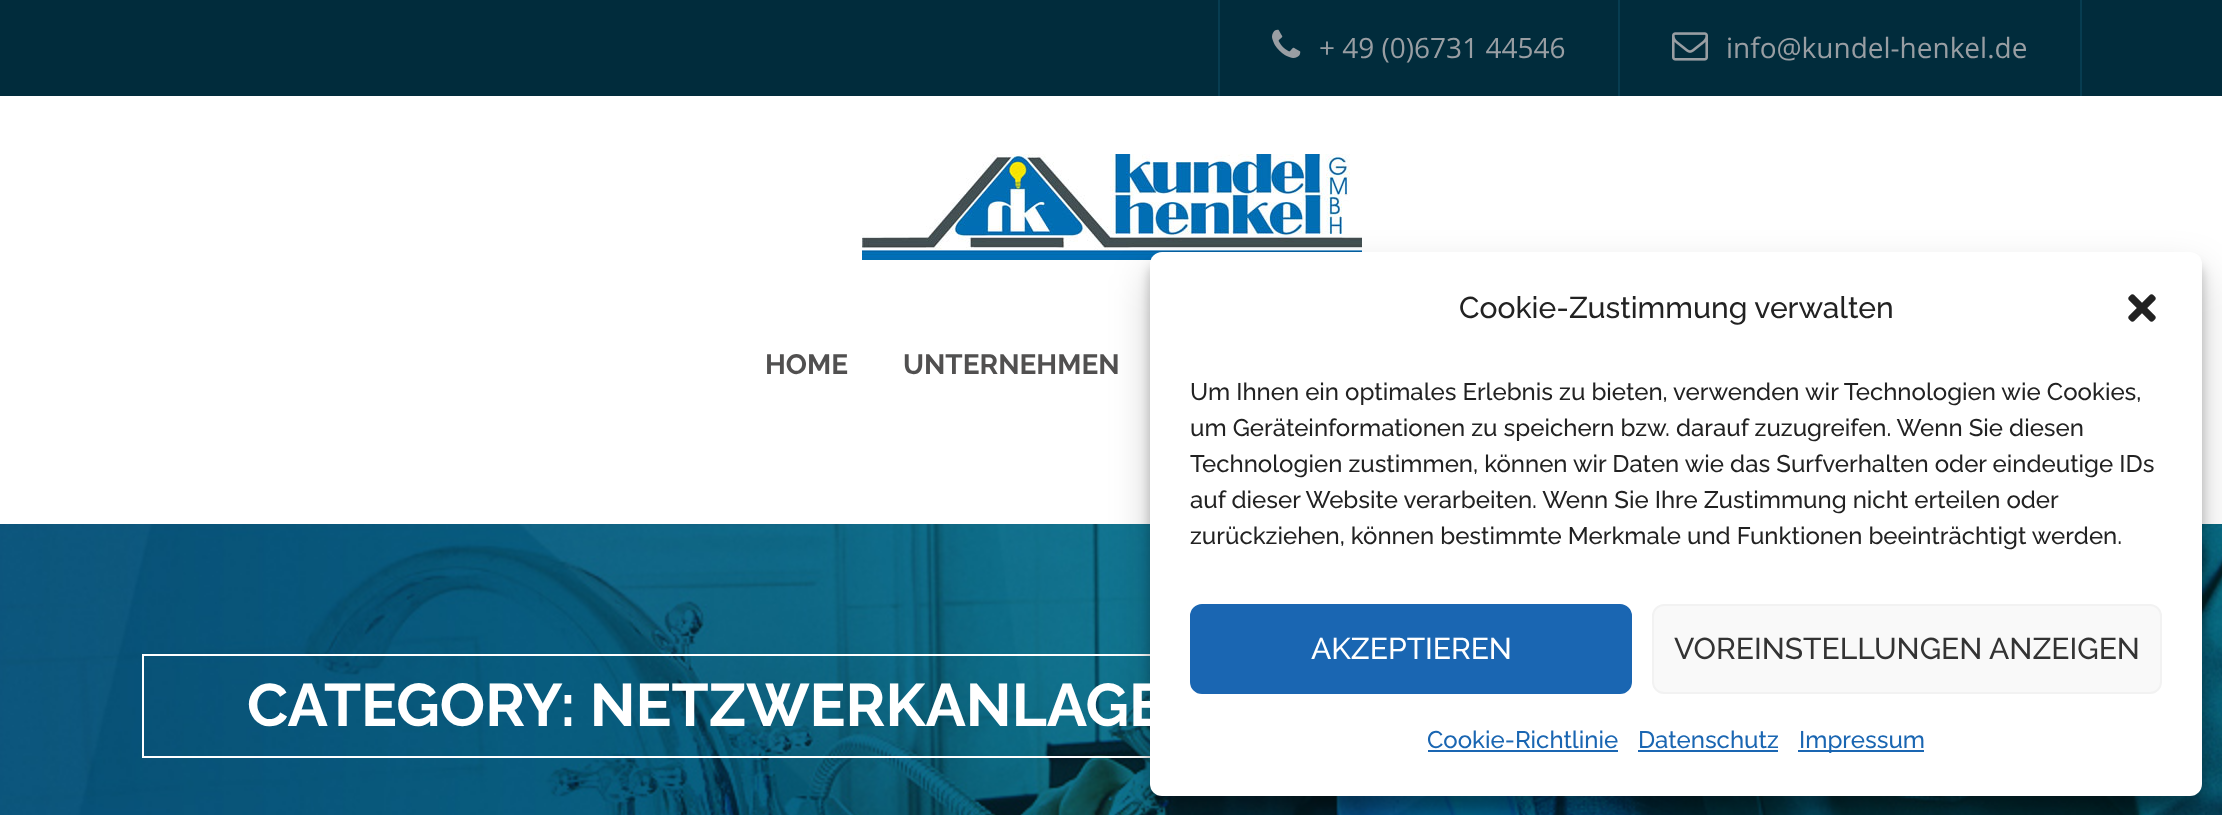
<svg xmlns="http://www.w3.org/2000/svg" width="2222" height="815">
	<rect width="100%" height="100%" fill="#FFFFFF" />
	<rect x="0" y="0" width="2222" height="96" fill="#012C3C" />
	<rect x="1218" y="0" width="2" height="96" fill="#073D51" />
	<image x="1272" y="29" width="29" height="29" href="assets/img1.png" />
	<text x="1319" y="58" font-family="Open Sans" font-size="28" fill="#999EA3">+ 49 (0)6731 44546</text>
	<rect x="2080" y="0" width="2" height="96" fill="#073D51" />
	<rect x="1618" y="0" width="2" height="96" fill="#073D51" />
	<image x="1672" y="32" width="36" height="29" href="assets/img2.png" />
	<text x="1726" y="58" font-family="Open Sans" font-size="28" fill="#999EA3">info@kundel-henkel.de</text>
	<image x="862" y="154" width="500" height="106" href="assets/img3.png" />
	<g font-family="Raleway" font-size="28" font-weight="700" fill="#515050">
		<text x="765" y="374">HOME</text>
		<text x="903" y="374">UNTERNEHMEN</text>
	</g>
	<image x="0" y="524" width="2222" height="291" href="assets/img5.png" />
	<rect x="143" y="655" width="1172" height="102" fill="none" stroke="#FFFFFF" stroke-width="2" />
	<rect x="1150" y="264" width="1052" height="544" rx="12" fill="#000000" fill-opacity="0.23" filter="blur(6px)" />
	<rect x="1150" y="272" width="1052" height="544" rx="12" fill="#000000" fill-opacity="0.19" filter="blur(20px)" />
	<rect x="1150" y="252" width="1052" height="544" rx="12" fill="#FFFFFF" />
	<text x="1459" y="318" font-family="Raleway" font-size="30" font-weight="500" fill="#222222">Cookie-Zustimmung verwalten</text>
	<image x="2128" y="294" width="28" height="28" href="assets/img4.png" />
	<g font-family="Raleway" font-size="24" font-weight="500" fill="#222222">
		<text x="1190" y="400">Um Ihnen ein optimales Erlebnis zu bieten, verwenden wir Technologien wie Cookies,</text>
		<text x="1190" y="436">um Geräteinformationen zu speichern bzw. darauf zuzugreifen. Wenn Sie diesen</text>
		<text x="1190" y="472">Technologien zustimmen, können wir Daten wie das Surfverhalten oder eindeutige IDs</text>
		<text x="1190" y="508">auf dieser Website verarbeiten. Wenn Sie Ihre Zustimmung nicht erteilen oder</text>
		<text x="1190" y="544">zurückziehen, können bestimmte Merkmale und Funktionen beeinträchtigt werden.</text>
	</g>
	<rect x="1191" y="605" width="440" height="88" rx="11" fill="#1A66B2" stroke="#1A66B2" stroke-width="2" />
	<text x="1311" y="659" font-family="Raleway" font-size="30" font-weight="500" fill="#FFFFFF">AKZEPTIEREN</text>
	<rect x="1653" y="605" width="508" height="88" rx="11" fill="#F9F9F9" stroke="#F2F2F2" stroke-width="2" />
	<text x="1674" y="659" font-family="Raleway" font-size="30" font-weight="500" fill="#333333">VOREINSTELLUNGEN ANZEIGEN</text>
	<text x="1427" y="748" font-family="Raleway" font-size="24" font-weight="500" fill="#1A66B2">Cookie-Richtlinie</text>
	<rect x="1428" y="750" width="190" height="2" fill="#1A66B2" />
	<text x="1638" y="748" font-family="Raleway" font-size="24" font-weight="500" fill="#1A66B2">Datenschutz</text>
	<rect x="1638" y="750" width="140" height="2" fill="#1A66B2" />
	<rect x="1798" y="750" width="126" height="2" fill="#1A66B2" />
	<text x="1799" y="748" font-family="Raleway" font-size="24" font-weight="500" fill="#1A66B2">Impressum</text>
	<text x="247" y="726" font-family="Raleway" font-size="60" font-weight="700" fill="#FFFFFF">CATEGORY: NETZWERKANLAGE</text>
</svg>
